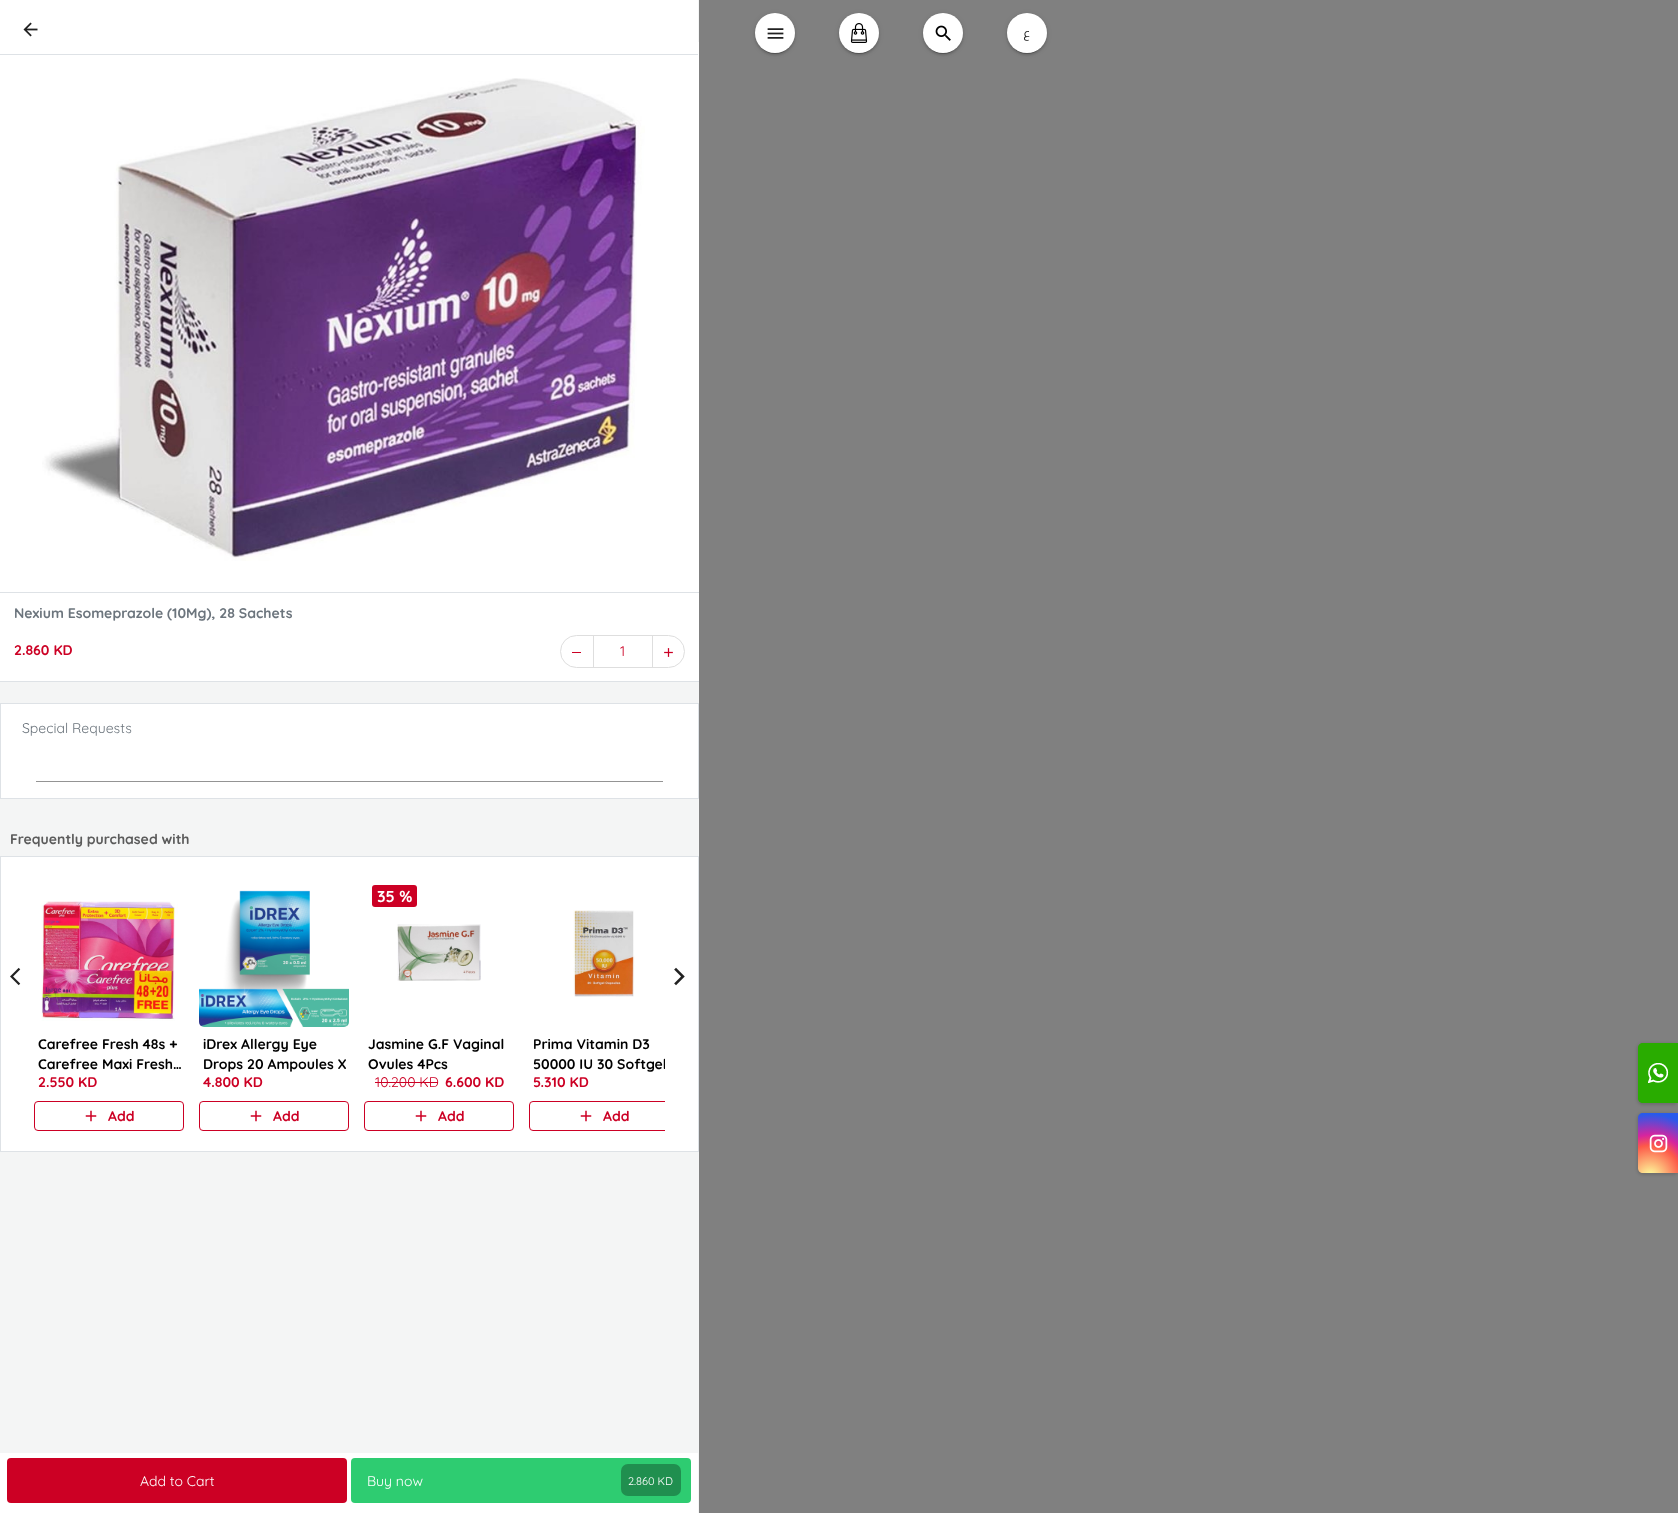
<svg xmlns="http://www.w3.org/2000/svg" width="1678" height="1513">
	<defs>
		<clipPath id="clip1"><rect x="529" y="1034" width="136" height="40" /></clipPath>
		<clipPath id="clip2"><rect x="34" y="877" width="631" height="254" /></clipPath>
		<radialGradient id="g1" gradientUnits="userSpaceOnUse" cx="1650" cy="1177" r="70"><stop offset="0" stop-color="#FDF497" /><stop offset="0.05" stop-color="#FDF497" /><stop offset="0.45" stop-color="#FD5949" /><stop offset="0.6" stop-color="#D6249F" /><stop offset="0.9" stop-color="#285AEB" /></radialGradient>
	</defs>
	<rect width="100%" height="100%" fill="#F4F5F5" />
	<rect x="699" y="0" width="979" height="1513" fill="#808080" />
	<rect x="755" y="14" width="40" height="40" rx="20" fill="#000000" fill-opacity="0.12" filter="blur(2.5px)" />
	<rect x="755" y="15" width="40" height="40" rx="20" fill="#000000" fill-opacity="0.14" filter="blur(1px)" />
	<rect x="757" y="18" width="36" height="36" rx="18" fill="#000000" fill-opacity="0.2" filter="blur(0.5px)" />
	<circle cx="775" cy="33" r="20" fill="#FFFFFF" />
	<image x="767" y="28" width="17" height="11" href="assets/img1.png" />
	<rect x="839" y="14" width="40" height="40" rx="20" fill="#000000" fill-opacity="0.12" filter="blur(2.5px)" />
	<rect x="839" y="15" width="40" height="40" rx="20" fill="#000000" fill-opacity="0.14" filter="blur(1px)" />
	<rect x="841" y="18" width="36" height="36" rx="18" fill="#000000" fill-opacity="0.2" filter="blur(0.5px)" />
	<circle cx="859" cy="33" r="20" fill="#FFFFFF" />
	<image x="850" y="23" width="18" height="20" href="assets/img2.png" />
	<rect x="923" y="14" width="40" height="40" rx="20" fill="#000000" fill-opacity="0.12" filter="blur(2.5px)" />
	<rect x="923" y="15" width="40" height="40" rx="20" fill="#000000" fill-opacity="0.14" filter="blur(1px)" />
	<rect x="925" y="18" width="36" height="36" rx="18" fill="#000000" fill-opacity="0.2" filter="blur(0.5px)" />
	<circle cx="943" cy="33" r="20" fill="#FFFFFF" />
	<image x="935" y="25" width="16" height="16" href="assets/img3.png" />
	<rect x="1007" y="14" width="40" height="40" rx="20" fill="#000000" fill-opacity="0.12" filter="blur(2.5px)" />
	<rect x="1007" y="15" width="40" height="40" rx="20" fill="#000000" fill-opacity="0.14" filter="blur(1px)" />
	<rect x="1009" y="18" width="36" height="36" rx="18" fill="#000000" fill-opacity="0.2" filter="blur(0.5px)" />
	<circle cx="1027" cy="33" r="20" fill="#FFFFFF" />
	<text x="1030" y="37" font-family="Cairo" font-size="12" direction="rtl" fill="#212121">ع</text>
	<rect x="0" y="0" width="698" height="42" fill="#FFFFFF" />
	<rect x="0" y="42" width="699" height="550" fill="#FFFFFF" />
	<rect x="0" y="54" width="698" height="1" fill="#DEE2E6" />
	<image x="23" y="22" width="15" height="15" href="assets/img4.png" />
	<image x="42" y="78" width="603" height="483" href="assets/img5.png" />
	<rect x="0" y="593" width="699" height="88" fill="#FFFFFF" />
	<rect x="0" y="592" width="699" height="1" fill="#DEE2E6" />
	<rect x="0" y="681" width="699" height="1" fill="#DEE2E6" />
	<text x="14" y="618" font-family="'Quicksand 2'" font-size="14" font-weight="300" fill="#6C757D">Nexium Esomeprazole (10Mg), 28 Sachets</text>
	<text x="14" y="655" font-family="'Quicksand 2'" font-size="14" font-weight="300" fill="#CC0024">2.860 KD</text>
	<rect x="560.5" y="635.5" width="124" height="32" rx="16" fill="none" stroke="#DEDEDE" />
	<rect x="572" y="652" width="9" height="1" fill="#CC0024" />
	<rect x="652" y="635" width="1" height="32" fill="#DEDEDE" />
	<rect x="593" y="635" width="1" height="32" fill="#DEDEDE" />
	<text x="620" y="656" font-family="Quicksand" font-size="14" font-weight="300" fill="#CC0024">1</text>
	<image x="664" y="648" width="9" height="9" href="assets/img6.png" />
	<rect x="0.5" y="703.5" width="698" height="95" fill="#FFFFFF" stroke="#DEE2E6" />
	<text x="22" y="733" font-family="Quicksand" font-size="14" font-weight="300" fill="#6C757D">Special Requests</text>
	<rect x="36" y="781" width="627" height="1" fill="#949494" />
	<text x="10" y="844" font-family="'Quicksand 2'" font-size="14" font-weight="300" fill="#5B5B5B">Frequently purchased with</text>
	<rect x="0.5" y="856.5" width="698" height="295" fill="#FFFFFF" stroke="#DEE2E6" />
	<image x="10" y="967" width="11" height="19" href="assets/img7.png" />
	<image x="41" y="901" width="137" height="120" href="assets/img8.png" />
	<g font-family="'Quicksand 2'" font-size="14" font-weight="300" fill="#000000">
		<text x="38" y="1049">Carefree Fresh 48s +</text>
		<text x="38" y="1069">Carefree Maxi Fresh…</text>
	</g>
	<text x="38" y="1087" font-family="'Quicksand 2'" font-size="14" font-weight="300" fill="#CC0024">2.550 KD</text>
	<rect x="34.5" y="1101.5" width="149" height="29" rx="3.5" fill="none" stroke="#CC0024" />
	<image x="85" y="1110" width="12" height="12" href="assets/img9.png" />
	<text x="108" y="1121" font-family="'Quicksand 2'" font-size="14" font-weight="300" fill="#CC0024">Add</text>
	<image x="199" y="890" width="150" height="137" href="assets/img10.png" />
	<g font-family="'Quicksand 2'" font-size="14" font-weight="300" fill="#000000">
		<text x="203" y="1049">iDrex Allergy Eye</text>
		<text x="203" y="1069">Drops 20 Ampoules X</text>
	</g>
	<text x="203" y="1087" font-family="'Quicksand 2'" font-size="14" font-weight="300" fill="#CC0024">4.800 KD</text>
	<rect x="199.5" y="1101.5" width="149" height="29" rx="3.5" fill="none" stroke="#CC0024" />
	<image x="250" y="1110" width="12" height="12" href="assets/img9.png" />
	<text x="273" y="1121" font-family="'Quicksand 2'" font-size="14" font-weight="300" fill="#CC0024">Add</text>
	<image x="397" y="924" width="84" height="57" href="assets/img11.png" />
	<rect x="372" y="885" width="45" height="22" rx="3" fill="#CC0024" />
	<text x="377" y="902" font-family="'Quicksand 2'" font-size="16" font-weight="300" fill="#FFFFFF">35 %</text>
	<g font-family="'Quicksand 2'" font-size="14" font-weight="300" fill="#000000">
		<text x="368" y="1049">Jasmine G.F Vaginal</text>
		<text x="368" y="1069">Ovules 4Pcs</text>
	</g>
	<text x="375" y="1087" font-family="Quicksand" font-size="14" font-weight="300" fill="#CC0024">10.200 KD</text>
	<rect x="375" y="1082" width="63" height="1" fill="#CC0024" />
	<text x="445" y="1087" font-family="'Quicksand 2'" font-size="14" font-weight="300" fill="#CC0024">6.600 KD</text>
	<rect x="364.5" y="1101.5" width="149" height="29" rx="3.5" fill="none" stroke="#CC0024" />
	<image x="415" y="1110" width="12" height="12" href="assets/img9.png" />
	<text x="438" y="1121" font-family="'Quicksand 2'" font-size="14" font-weight="300" fill="#CC0024">Add</text>
	<image x="573" y="910" width="62" height="87" href="assets/img12.png" />
	<text x="533" y="1049" font-family="'Quicksand 2'" font-size="14" font-weight="300" fill="#000000">Prima Vitamin D3</text>
	<g clip-path="url(#clip1)">
		<text x="533" y="1069" font-family="'Quicksand 2'" font-size="14" font-weight="300" fill="#000000">50000 IU 30 Softgel</text>
	</g>
	<text x="533" y="1087" font-family="'Quicksand 2'" font-size="14" font-weight="300" fill="#CC0024">5.310 KD</text>
	<g clip-path="url(#clip2)">
		<rect x="529.5" y="1101.5" width="149" height="29" rx="3.5" fill="none" stroke="#CC0024" />
	</g>
	<image x="580" y="1110" width="12" height="12" href="assets/img9.png" />
	<text x="603" y="1121" font-family="'Quicksand 2'" font-size="14" font-weight="300" fill="#CC0024">Add</text>
	<image x="674" y="967" width="11" height="19" href="assets/img13.png" />
	<rect x="0" y="1453" width="698" height="60" fill="#FFFFFF" />
	<rect x="7" y="1458" width="340" height="45" rx="4" fill="#CC0024" />
	<text x="140" y="1486" font-family="Quicksand" font-size="14" font-weight="300" fill="#FFFFFF">Add to Cart</text>
	<rect x="351" y="1458" width="340" height="45" rx="4" fill="#2ECC71" />
	<text x="367" y="1486" font-family="Quicksand" font-size="14" font-weight="300" fill="#FFFFFF">Buy now</text>
	<rect x="621" y="1464" width="60" height="32" rx="7" fill="#208F4F" />
	<text x="628" y="1485" font-family="Quicksand" font-size="11" font-weight="300" fill="#FFFFFF">2.860 KD</text>
	<rect x="1637" y="1043" width="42" height="62" rx="6" fill="#000000" fill-opacity="0.15" filter="blur(1.5px)" />
	<path d="M1643 1043H1678V1103H1643C1640 1103 1638 1101 1638 1098V1048C1638 1045 1640 1043 1643 1043Z" fill="#29AC00" />
	<image x="1638" y="1044" width="31" height="58" href="assets/img14.png" />
	<rect x="1637" y="1113" width="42" height="62" rx="6" fill="#000000" fill-opacity="0.15" filter="blur(1.5px)" />
	<path d="M1643 1113H1678V1173H1643C1640 1173 1638 1171 1638 1168V1118C1638 1115 1640 1113 1643 1113Z" fill="url(#g1)" />
	<image x="1649" y="1134" width="19" height="19" href="assets/img15.png" />
</svg>
